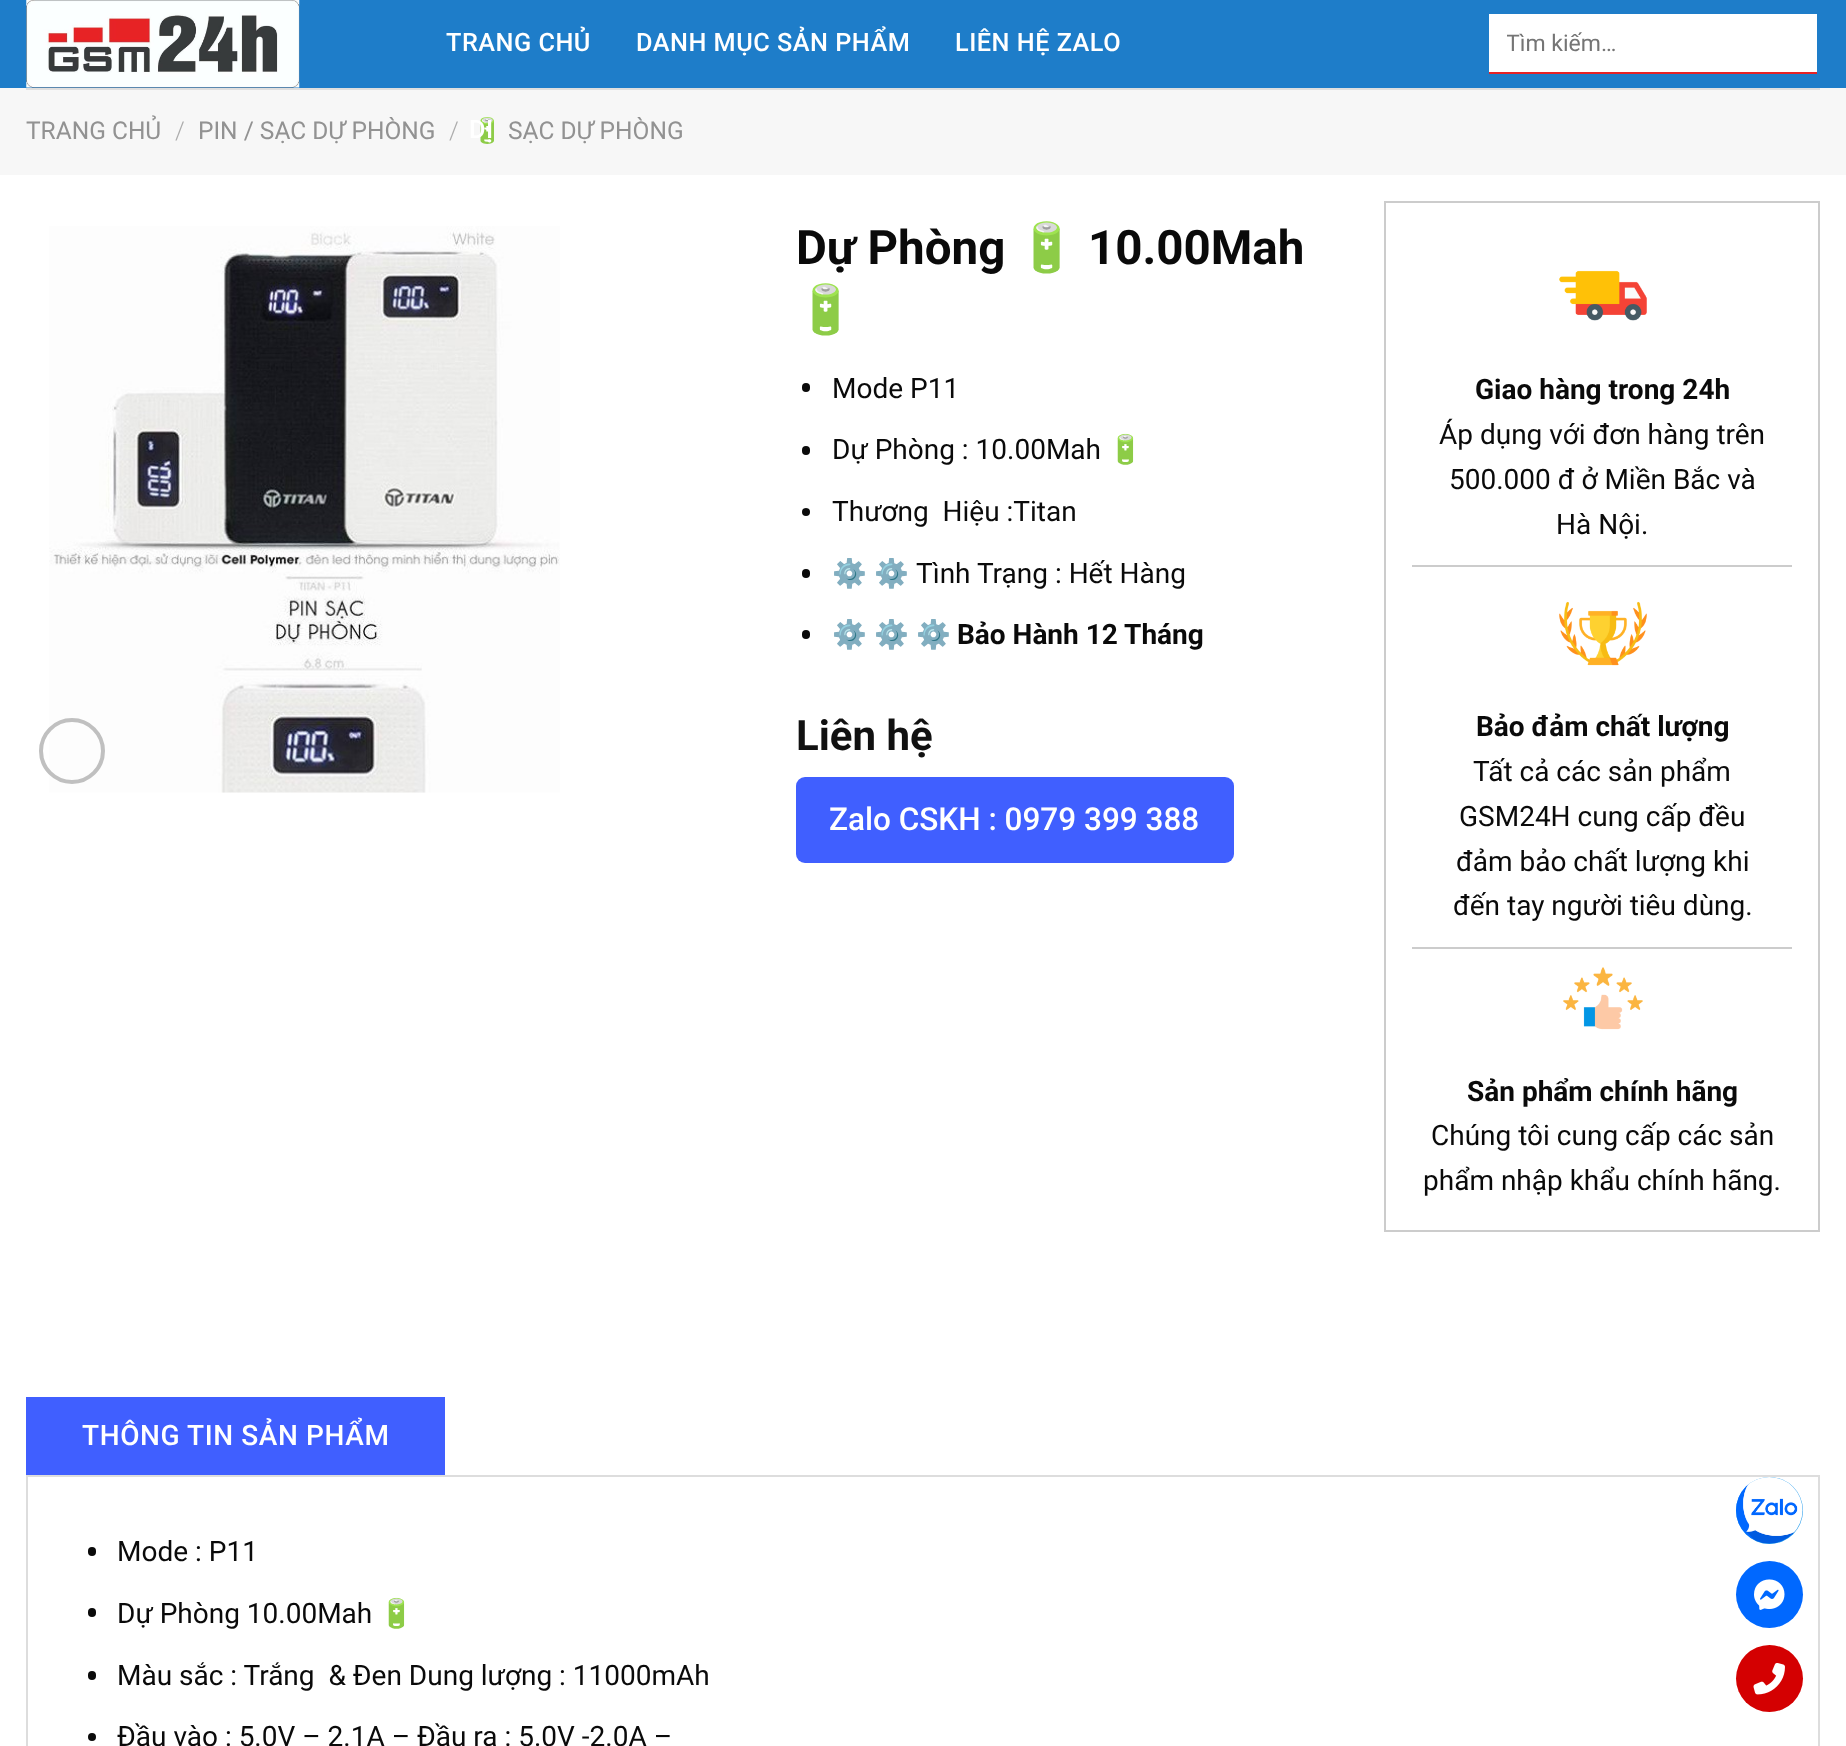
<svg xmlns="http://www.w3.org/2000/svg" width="1846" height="1746">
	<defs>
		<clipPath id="clip1"><rect x="1507" y="30" width="287" height="26" /></clipPath>
	</defs>
	<rect width="100%" height="100%" fill="#FFFFFF" />
	<rect x="0" y="88" width="1846" height="87" fill="#F7F7F7" />
	<text x="26" y="139" font-family="Roboto" font-size="24.5" fill="#929292">TRANG CHỦ</text>
	<text x="175" y="139" font-family="Roboto" font-size="24.5" font-weight="300" fill="#ACACAC">/</text>
	<text x="198" y="139" font-family="Roboto" font-size="24.5" fill="#929292">PIN / SẠC DỰ PHÒNG</text>
	<text x="449" y="139" font-family="Roboto" font-size="24.5" font-weight="300" fill="#ACACAC">/</text>
	<text x="472" y="139" font-family="Noto Color Emoji" font-size="24.5" fill="#929292">🔋</text>
	<text x="508" y="139" font-family="Roboto" font-size="24.5" fill="#929292">SẠC DỰ PHÒNG</text>
	<rect x="0" y="0" width="1846" height="88" fill="#1E7DC9" />
	<image x="26" y="0" width="274" height="88" href="assets/img1.png" />
	<g font-family="Roboto" font-size="25.25" font-weight="500" letter-spacing="0.5" fill="#FFFFFF">
		<text x="446" y="51">TRANG CHỦ</text>
		<text x="636" y="51">DANH MỤC SẢN PHẨM</text>
		<text x="955" y="51">LIÊN HỆ ZALO</text>
		<text x="469" y="138">DỊ</text>
	</g>
	<rect x="1489" y="14" width="328" height="58" fill="#FFFFFF" />
	<rect x="1489" y="72" width="328" height="2" fill="#E72325" />
	<g clip-path="url(#clip1)">
		<text x="1506" y="51" font-family="Roboto" font-size="23" fill="#757575">Tìm kiếm…</text>
	</g>
	<rect x="26" y="88" width="1794" height="2" fill="#DFDFDF" />
	<image x="49" y="226" width="511" height="567" href="assets/img2.png" />
	<circle cx="72" cy="751" r="31" fill="none" stroke="#C0C0C0" stroke-width="4" />
	<text x="796" y="264" font-family="Roboto" font-size="47.5" font-weight="700" fill="#0A0A0A">Dự Phòng</text>
	<text x="1017" y="264" font-family="Noto Color Emoji" font-size="47.5" font-weight="700" fill="#0A0A0A">🔋</text>
	<text x="1088" y="264" font-family="Roboto" font-size="47.5" font-weight="700" fill="#0A0A0A">10.00Mah</text>
	<text x="796" y="326" font-family="Noto Color Emoji" font-size="47.5" font-weight="700" fill="#0A0A0A">🔋</text>
	<rect x="802" y="383" width="8" height="9" rx="4" fill="#0A0A0A" />
	<text x="832" y="398" font-family="Roboto" font-size="28" fill="#0A0A0A">Mode P11</text>
	<rect x="802" y="446" width="8" height="9" rx="4" fill="#0A0A0A" />
	<text x="832" y="459" font-family="Roboto" font-size="28" fill="#0A0A0A">Dự Phòng : 10.00Mah</text>
	<text x="1108" y="459" font-family="Noto Color Emoji" font-size="28" fill="#0A0A0A">🔋</text>
	<circle cx="806" cy="512" r="4" fill="#0A0A0A" />
	<text x="832" y="521" font-family="Roboto" font-size="28" fill="#0A0A0A" xml:space="preserve">Thương  Hiệu :Titan</text>
	<rect x="802" y="569" width="8" height="9" rx="4" fill="#0A0A0A" />
	<g font-family="Noto Color Emoji" font-size="28" font-weight="700" fill="#0A0A0A">
		<text x="832" y="583">⚙️</text>
		<text x="874" y="583">⚙️</text>
	</g>
	<text x="916" y="583" font-family="Roboto" font-size="28" fill="#0A0A0A">Tình Trạng : Hết Hàng</text>
	<rect x="802" y="630" width="8" height="9" rx="4" fill="#0A0A0A" />
	<g font-family="Noto Color Emoji" font-size="28" font-weight="700" fill="#0A0A0A">
		<text x="832" y="644">⚙️</text>
		<text x="874" y="644">⚙️</text>
		<text x="916" y="644">⚙️</text>
	</g>
	<text x="957" y="644" font-family="Roboto" font-size="28" font-weight="700" fill="#0A0A0A">Bảo Hành 12 Tháng</text>
	<text x="796" y="750" font-family="Roboto" font-size="42" font-weight="700" fill="#111111">Liên hệ</text>
	<rect x="796" y="777" width="438" height="86" rx="9" fill="#405FFF" />
	<text x="829" y="830" font-family="Roboto" font-size="31.5" font-weight="500" fill="#FFFFFF">Zalo CSKH : 0979 399 388</text>
	<rect x="1385" y="202" width="434" height="1029" fill="none" stroke="#CCCCCC" stroke-width="2" />
	<rect x="1412" y="565" width="380" height="2" fill="#CCCCCC" />
	<image x="1559" y="270" width="88" height="51" href="assets/img3.png" />
	<text x="1475" y="399" font-family="Roboto" font-size="28" font-weight="700" fill="#0A0A0A">Giao hàng trong 24h</text>
	<g font-family="Roboto" font-size="28" fill="#0A0A0A">
		<text x="1439" y="444">Áp dụng với đơn hàng trên</text>
		<text x="1449" y="489">500.000 đ ở Miền Bắc và</text>
		<text x="1556" y="534">Hà Nội.</text>
	</g>
	<rect x="1412" y="947" width="380" height="2" fill="#CCCCCC" />
	<image x="1559" y="601" width="88" height="65" href="assets/img4.png" />
	<text x="1476" y="736" font-family="Roboto" font-size="28" font-weight="700" fill="#0A0A0A">Bảo đảm chất lượng</text>
	<g font-family="Roboto" font-size="28" fill="#0A0A0A">
		<text x="1473" y="781">Tất cả các sản phẩm</text>
		<text x="1459" y="826">GSM24H cung cấp đều</text>
		<text x="1456" y="871">đảm bảo chất lượng khi</text>
		<text x="1453" y="915">đến tay người tiêu dùng.</text>
	</g>
	<image x="1563" y="967" width="80" height="63" href="assets/img5.png" />
	<text x="1467" y="1101" font-family="Roboto" font-size="28" font-weight="700" fill="#0A0A0A">Sản phẩm chính hãng</text>
	<g font-family="Roboto" font-size="28" fill="#0A0A0A">
		<text x="1431" y="1145">Chúng tôi cung cấp các sản</text>
		<text x="1423" y="1190">phẩm nhập khẩu chính hãng.</text>
	</g>
	<rect x="26" y="1397" width="419" height="78" fill="#405FFF" />
	<text x="82" y="1445" font-family="Roboto" font-size="28" font-weight="500" letter-spacing="0.6" fill="#FFFFFF">THÔNG TIN SẢN PHẨM</text>
	<rect x="27" y="1476" width="1792" height="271" fill="none" stroke="#DDDDDD" stroke-width="2" />
	<rect x="88" y="1547" width="8" height="9" rx="4" fill="#0A0A0A" />
	<text x="117" y="1561" font-family="Roboto" font-size="28" fill="#0A0A0A">Mode : P11</text>
	<rect x="88" y="1608" width="8" height="9" rx="4" fill="#0A0A0A" />
	<text x="117" y="1623" font-family="Roboto" font-size="28" fill="#0A0A0A">Dự Phòng 10.00Mah</text>
	<text x="379" y="1623" font-family="Noto Color Emoji" font-size="28" fill="#0A0A0A">🔋</text>
	<rect x="88" y="1671" width="8" height="9" rx="4" fill="#0A0A0A" />
	<text x="117" y="1685" font-family="Roboto" font-size="28" fill="#0A0A0A" xml:space="preserve">Màu sắc : Trắng  &amp; Đen Dung lượng : 11000mAh</text>
	<circle cx="92" cy="1737" r="4" fill="#0A0A0A" />
	<text x="117" y="1746" font-family="Roboto" font-size="28" fill="#0A0A0A">Đầu vào : 5.0V – 2.1A – Đầu ra : 5.0V -2.0A –</text>
	<circle cx="1769.5" cy="1510.5" r="33.5" fill="#2A9EED" />
	<image x="1736" y="1477" width="67" height="67" href="assets/img6.png" />
	<circle cx="1769.5" cy="1594.5" r="33.5" fill="#0068FF" />
	<image x="1754" y="1579" width="31" height="31" href="assets/img7.png" />
	<circle cx="1769.5" cy="1678.5" r="33.5" fill="#D40001" />
	<image x="1753" y="1663" width="32" height="32" href="assets/img8.png" />
</svg>
